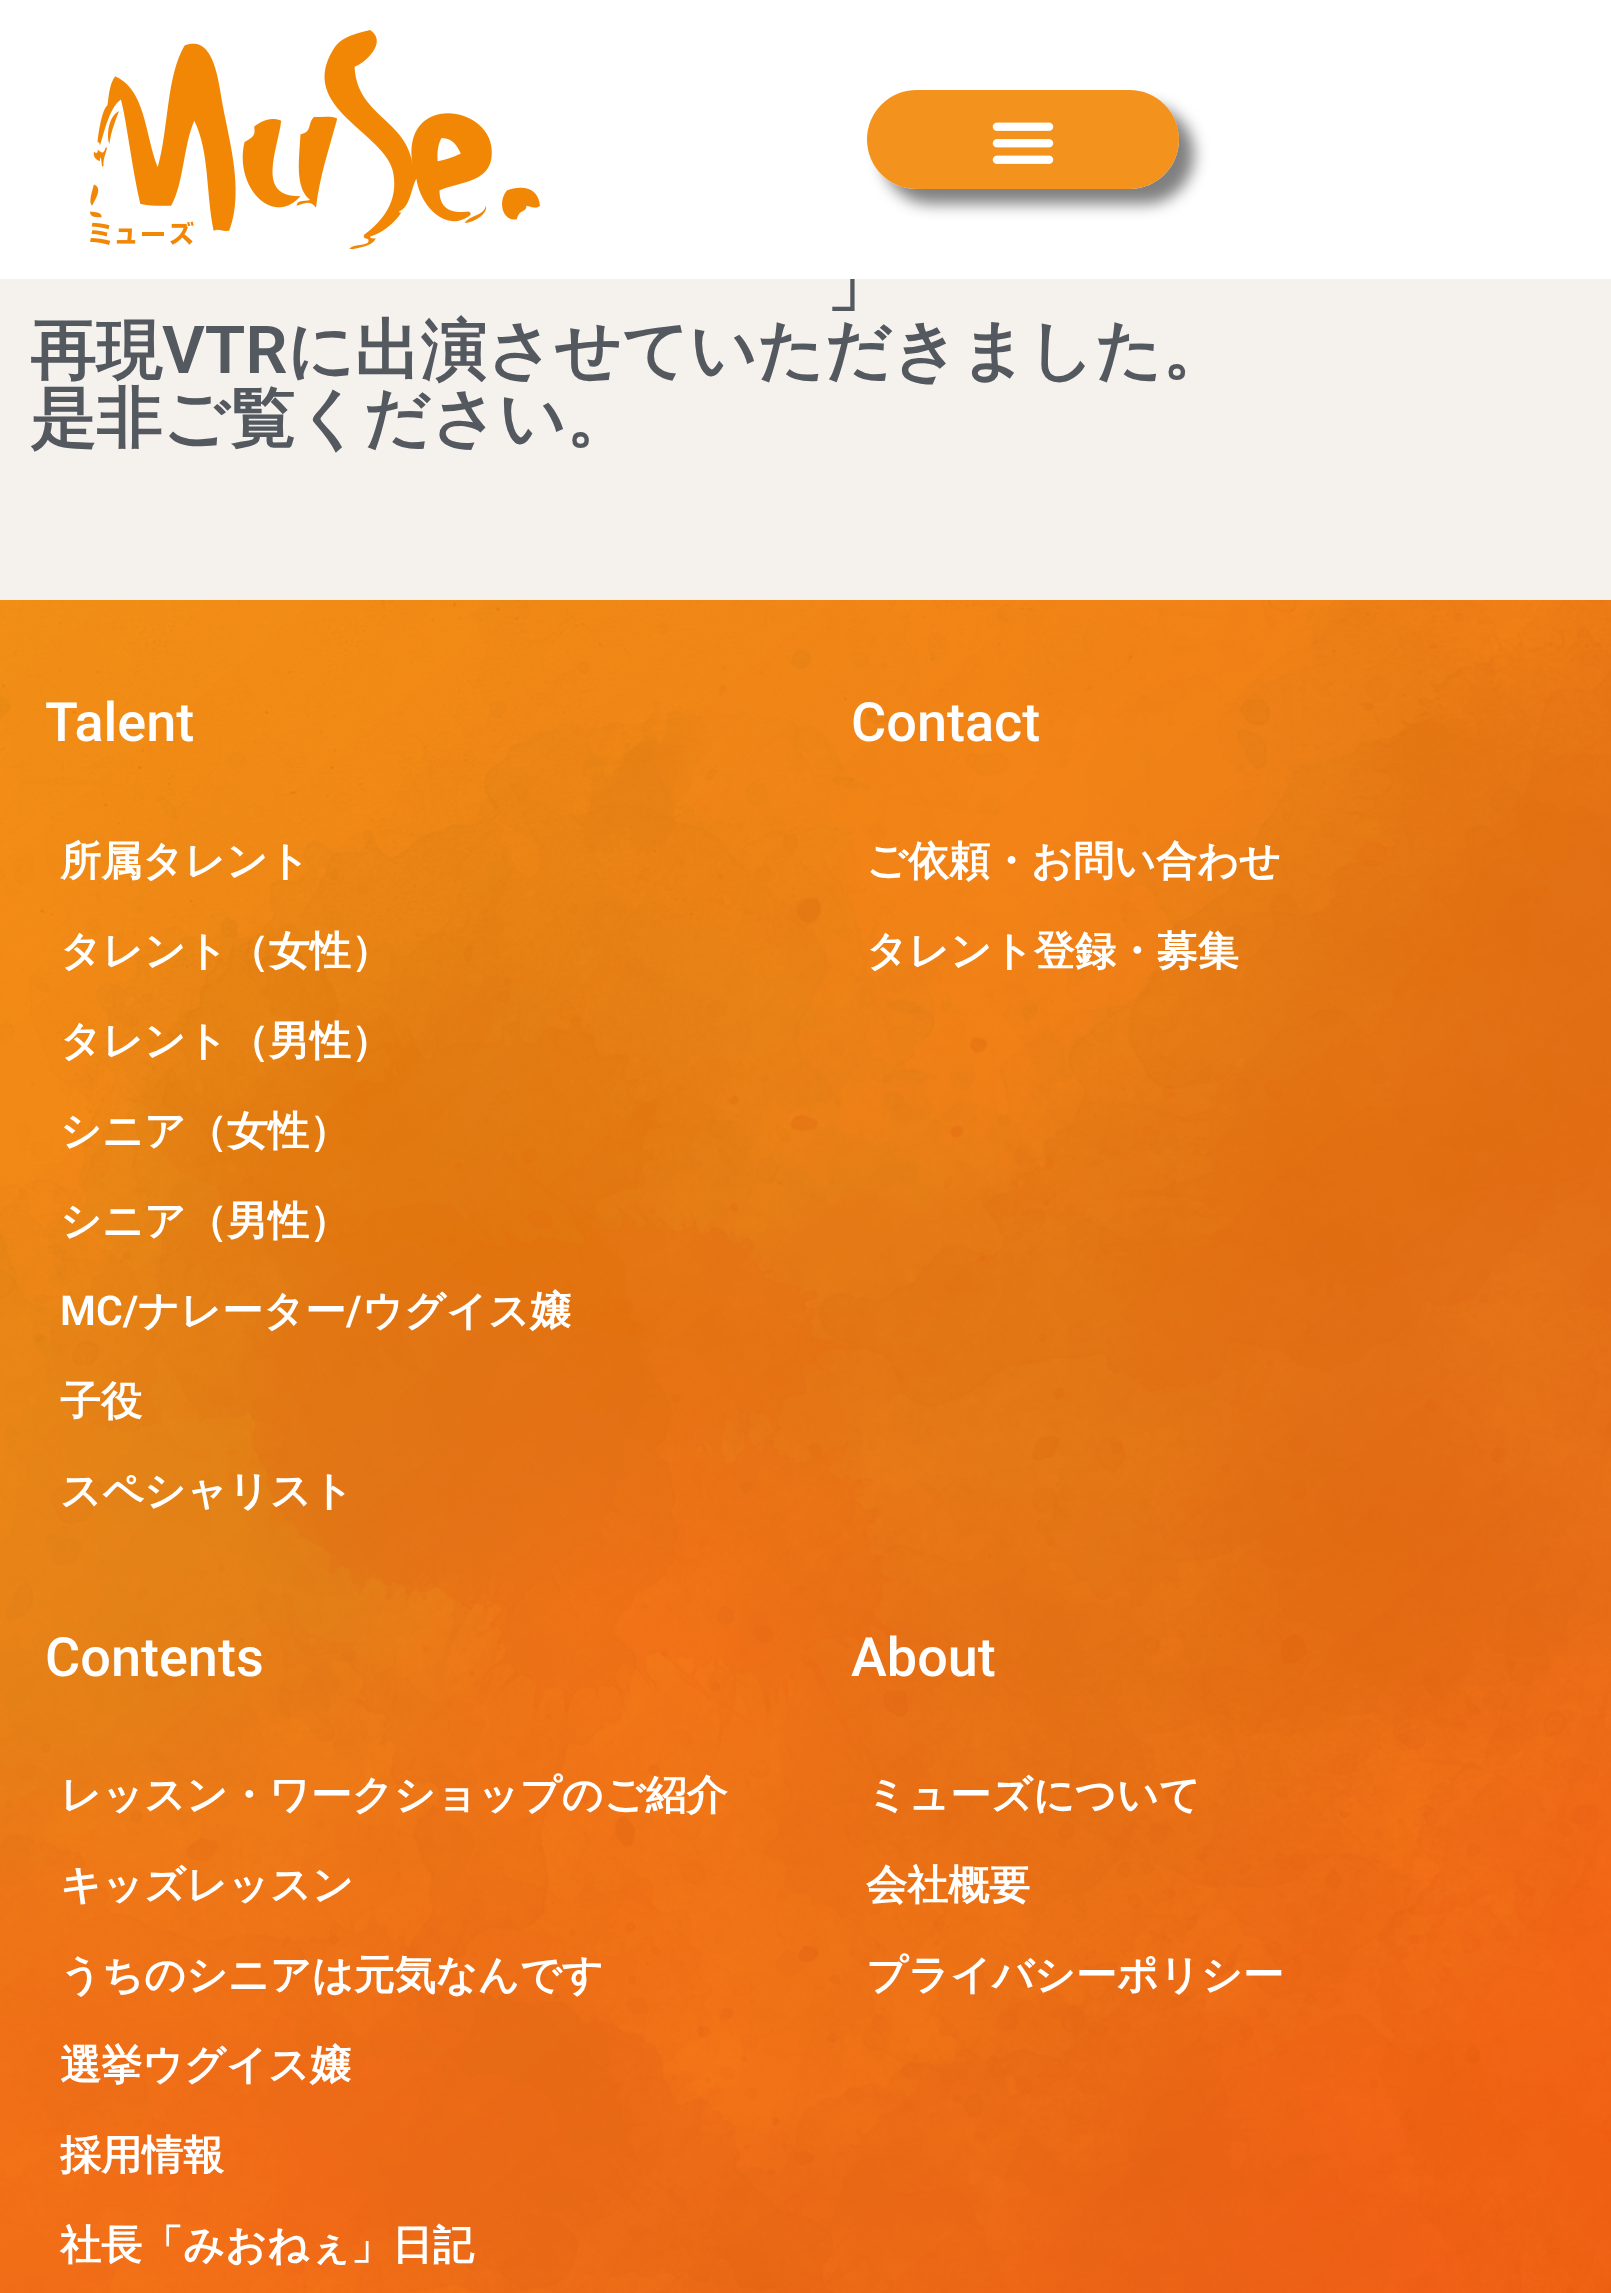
<svg xmlns="http://www.w3.org/2000/svg" width="1611" height="2293">
	<defs>
		<clipPath id="clip1"><path d="M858 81H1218V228H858ZM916.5 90H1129.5C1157 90 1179 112 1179 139.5C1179 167 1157 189 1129.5 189H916.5C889 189 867 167 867 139.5C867 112 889 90 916.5 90Z" clip-rule="evenodd" /></clipPath>
	</defs>
	<rect width="100%" height="100%" fill="#F5F1ED" />
	<text x="826" y="305" font-family="WenQuanYi Zen Hei" font-size="66" font-weight="700" fill="#54595F">」</text>
	<rect x="0" y="0" width="1611" height="279" fill="#FFFFFF" />
	<image x="90" y="30" width="450" height="219" href="assets/img1.png" />
	<g clip-path="url(#clip1)">
		<rect x="882" y="105" width="312" height="99" rx="49.5" fill="#000000" fill-opacity="0.5" filter="blur(7.5px)" />
	</g>
	<rect x="867" y="90" width="312" height="99" rx="49.5" fill="#F28705" fill-opacity="0.9" />
	<image x="992" y="122" width="62" height="42" href="assets/img2.png" />
	<text x="30" y="373" font-family="WenQuanYi Zen Hei" font-size="66" font-weight="700" fill="#54595F">再現</text>
	<text x="162" y="373" font-family="Roboto" font-size="66" font-weight="600" fill="#54595F">VTR</text>
	<g font-family="WenQuanYi Zen Hei" font-size="66" font-weight="700" fill="#54595F">
		<text x="287" y="373">に出演させていただきました。</text>
		<text x="30" y="441">是非ご覧ください。</text>
	</g>
	<image x="0" y="600" width="1611" height="1693" href="assets/img3.png" />
	<text x="45" y="741" font-family="Roboto" font-size="54" font-weight="500" fill="#FFFFFF">Talent</text>
	<g font-family="WenQuanYi Zen Hei" font-size="41" font-weight="700" fill="#FFFFFF">
		<text x="60" y="875">所属タレント</text>
		<text x="60" y="965">タレント（女性）</text>
		<text x="60" y="1055">タレント（男性）</text>
		<text x="60" y="1145">シニア（女性）</text>
		<text x="60" y="1235">シニア（男性）</text>
	</g>
	<text x="60" y="1325" font-family="Roboto" font-size="41" font-weight="600" fill="#FFFFFF">MC/</text>
	<text x="138" y="1325" font-family="WenQuanYi Zen Hei" font-size="41" font-weight="700" fill="#FFFFFF">ナレーター</text>
	<text x="346" y="1325" font-family="Roboto" font-size="41" font-weight="600" fill="#FFFFFF">/</text>
	<g font-family="WenQuanYi Zen Hei" font-size="41" font-weight="700" fill="#FFFFFF">
		<text x="362" y="1325">ウグイス嬢</text>
		<text x="60" y="1415">子役</text>
		<text x="60" y="1505">スペシャリスト</text>
	</g>
	<text x="851" y="741" font-family="Roboto" font-size="54" font-weight="500" fill="#FFFFFF">Contact</text>
	<g font-family="WenQuanYi Zen Hei" font-size="41" font-weight="700" fill="#FFFFFF">
		<text x="866" y="875">ご依頼・お問い合わせ</text>
		<text x="866" y="965">タレント登録・募集</text>
	</g>
	<text x="45" y="1676" font-family="Roboto" font-size="54" font-weight="500" fill="#FFFFFF">Contents</text>
	<g font-family="WenQuanYi Zen Hei" font-size="41" font-weight="700" fill="#FFFFFF">
		<text x="60" y="1809">レッスン・ワークショップのご紹介</text>
		<text x="60" y="1899">キッズレッスン</text>
		<text x="60" y="1989">うちのシニアは元気なんです</text>
		<text x="60" y="2079">選挙ウグイス嬢</text>
		<text x="60" y="2169">採用情報</text>
		<text x="60" y="2259">社長「みおねぇ」日記</text>
	</g>
	<text x="851" y="1676" font-family="Roboto" font-size="54" font-weight="500" fill="#FFFFFF">About</text>
	<g font-family="WenQuanYi Zen Hei" font-size="41" font-weight="700" fill="#FFFFFF">
		<text x="866" y="1809">ミューズについて</text>
		<text x="866" y="1899">会社概要</text>
		<text x="866" y="1989">プライバシーポリシー</text>
	</g>
</svg>
